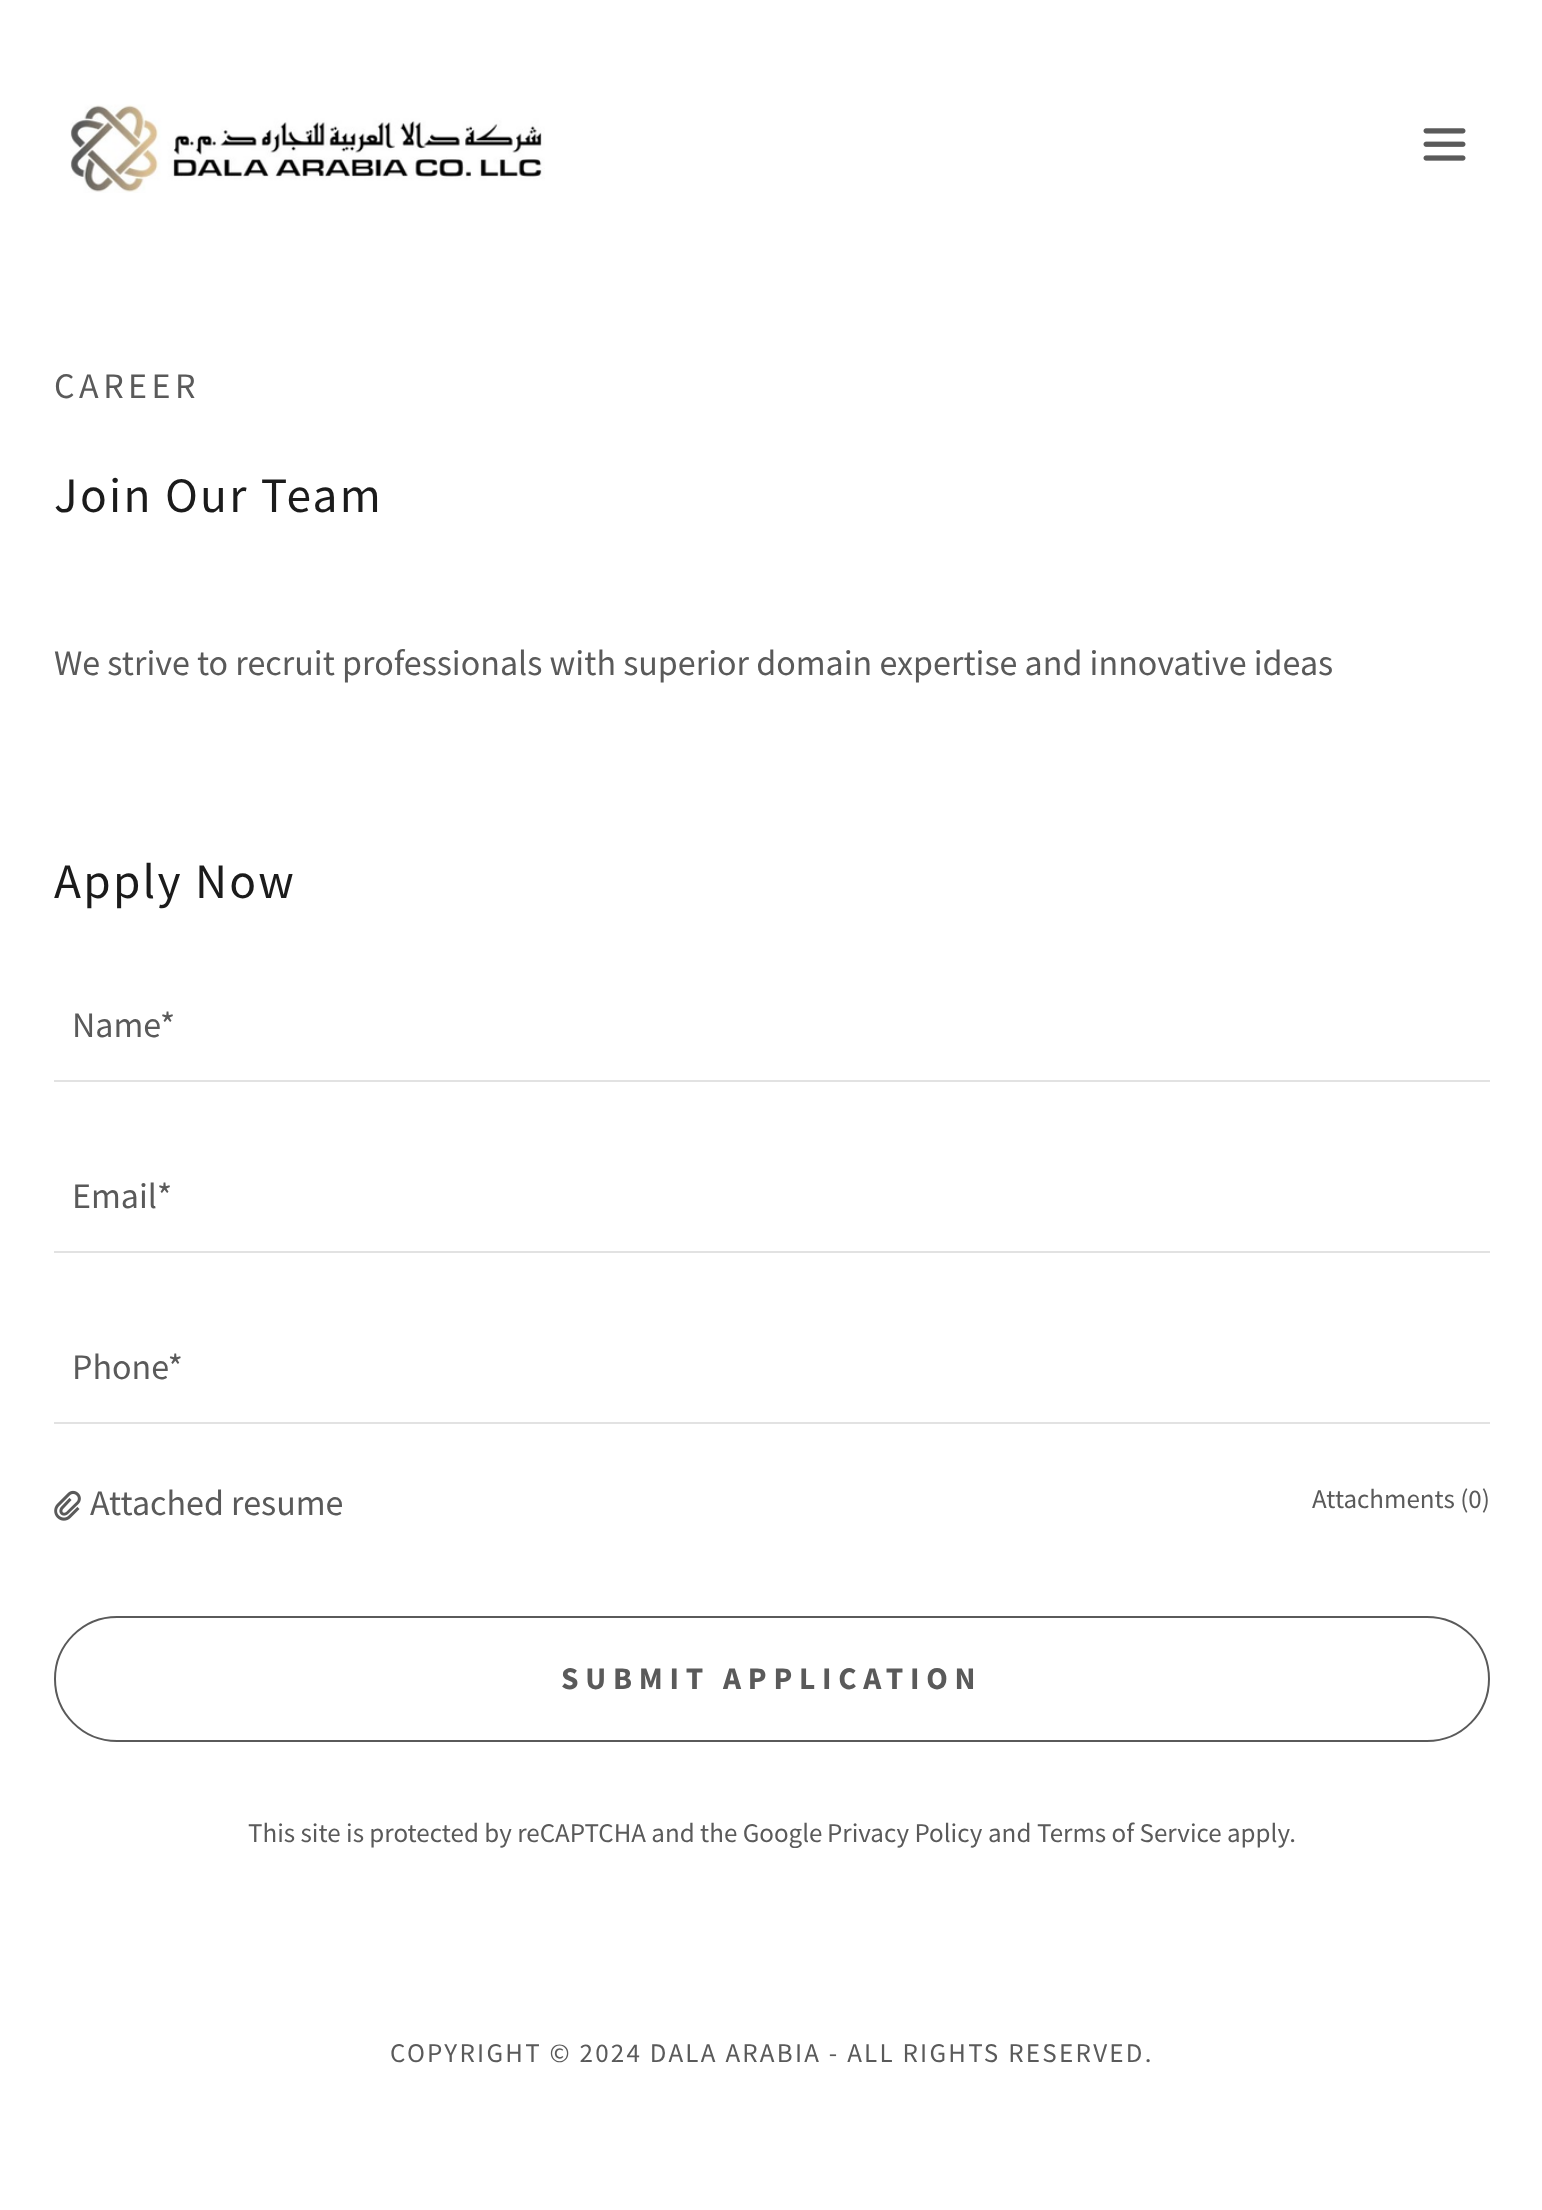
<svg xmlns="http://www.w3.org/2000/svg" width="1542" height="2210">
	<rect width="100%" height="100%" fill="#FFFFFF" />
	<image x="70" y="104" width="475" height="89" href="assets/img1.png" />
	<image x="1423" y="128" width="43" height="33" href="assets/img2.png" />
	<text x="54" y="398" font-family="Source Sans Pro" font-size="36" letter-spacing="4.5" fill="#5A5A5A">CAREER</text>
	<text x="54" y="512" font-family="Source Sans Pro" font-size="49.5" letter-spacing="2.25" fill="#1B1B1B">Join Our Team</text>
	<text x="54" y="675" font-family="Source Sans Pro" font-size="36" fill="#5A5A5A">We strive to recruit professionals with superior domain expertise and innovative ideas</text>
	<text x="54" y="898" font-family="Source Sans Pro" font-size="49.5" letter-spacing="2.25" fill="#1B1B1B">Apply Now</text>
	<text x="72" y="1037" font-family="Source Sans Pro" font-size="36" fill="#5A5A5A">Name*</text>
	<rect x="54" y="1080" width="1436" height="2" fill="#E2E2E2" />
	<text x="72" y="1208" font-family="Source Sans Pro" font-size="36" fill="#5A5A5A">Email*</text>
	<rect x="54" y="1251" width="1436" height="2" fill="#E2E2E2" />
	<text x="72" y="1379" font-family="Source Sans Pro" font-size="36" fill="#5A5A5A">Phone*</text>
	<rect x="54" y="1422" width="1436" height="2" fill="#E2E2E2" />
	<image x="54" y="1490" width="27" height="31" href="assets/img3.png" />
	<text x="90" y="1515" font-family="Source Sans Pro" font-size="36" fill="#5A5A5A">Attached resume</text>
	<text x="1312" y="1508" font-family="Source Sans Pro" font-size="27" fill="#5A5A5A">Attachments (0)</text>
	<rect x="55" y="1617" width="1434" height="124" rx="62" fill="none" stroke="#5A5A5A" stroke-width="2" />
	<text x="561" y="1689" font-family="Source Sans Pro" font-size="31.5" font-weight="700" letter-spacing="6.75" fill="#5A5A5A">SUBMIT APPLICATION</text>
	<g font-family="Source Sans Pro" font-size="27" fill="#5A5A5A">
		<text x="248" y="1842">This site is protected by reCAPTCHA and the Google</text>
		<text x="827" y="1842">Privacy Policy</text>
		<text x="988" y="1842">and</text>
		<text x="1037" y="1842">Terms of Service</text>
		<text x="1227" y="1842">apply.</text>
	</g>
	<text x="390" y="2062" font-family="Source Sans Pro" font-size="27" letter-spacing="2.25" fill="#5A5A5A">COPYRIGHT © 2024 DALA ARABIA - ALL RIGHTS RESERVED.</text>
</svg>
